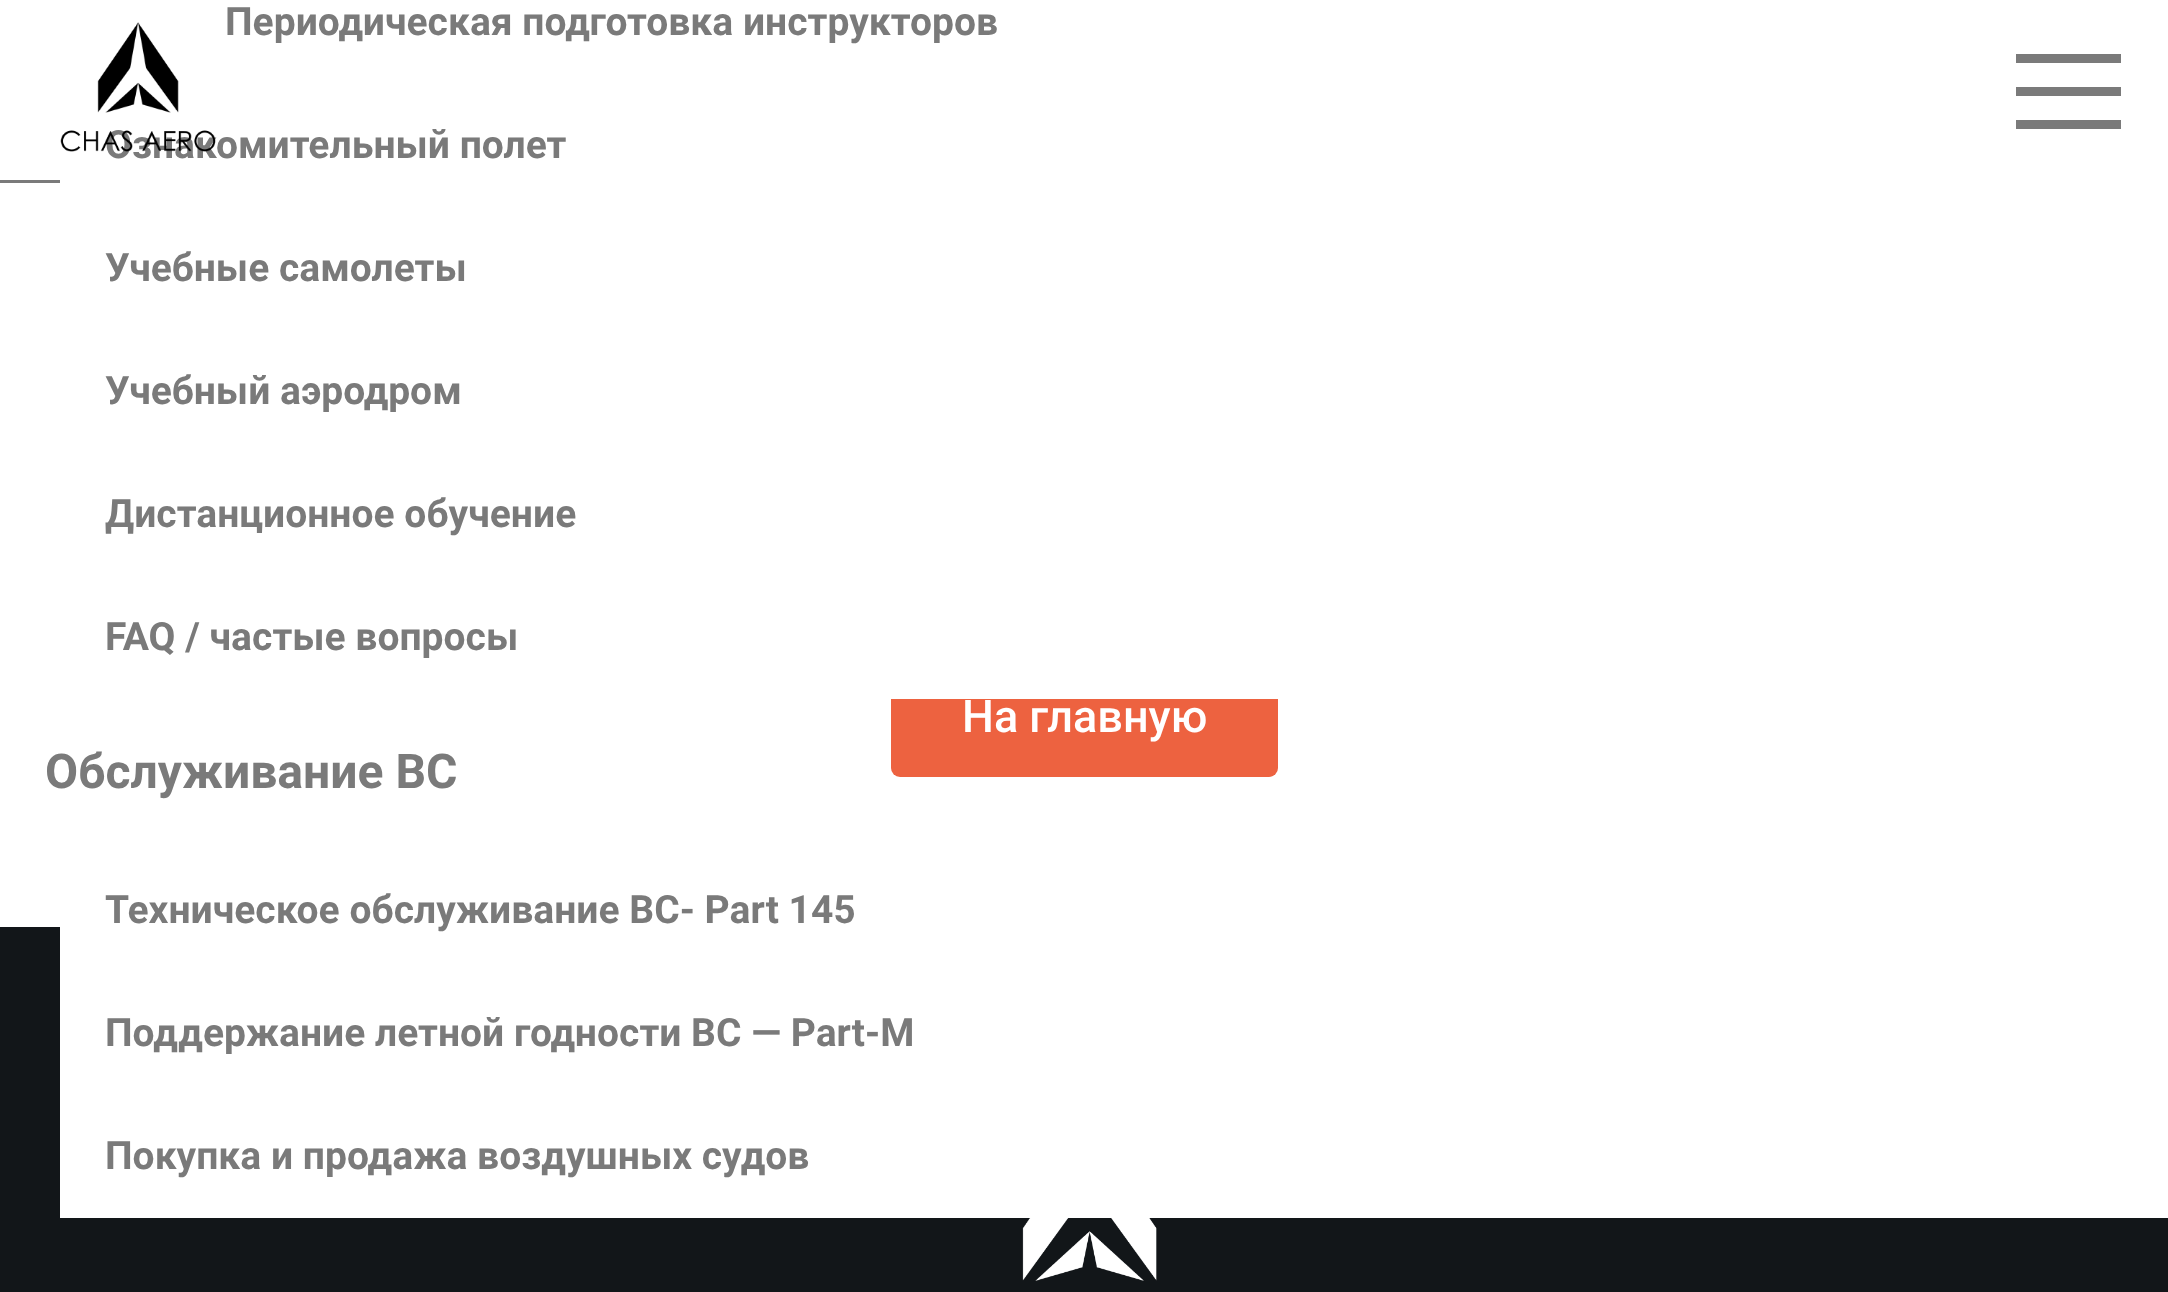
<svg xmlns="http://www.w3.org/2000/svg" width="2168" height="1292">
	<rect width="100%" height="100%" fill="#FFFFFF" />
	<rect x="0" y="180" width="60" height="3" fill="#7A7A7A" />
	<rect x="891" y="660" width="387" height="117" rx="9" fill="#ED6240" />
	<rect x="891" y="660" width="387" height="39" fill="#FFFFFF" />
	<g font-family="Roboto" font-size="39" font-weight="700" fill="#7A7A7A">
		<text x="225" y="35">Периодическая подготовка инструкторов</text>
		<text x="105" y="158">Ознакомительный полет</text>
		<text x="105" y="281">Учебные самолеты</text>
		<text x="105" y="404">Учебный аэродром</text>
		<text x="105" y="527">Дистанционное обучение</text>
		<text x="105" y="650">FAQ / частые вопросы</text>
	</g>
	<text x="45" y="788" font-family="Roboto" font-size="48" font-weight="700" fill="#7A7A7A">Обслуживание ВС</text>
	<rect x="0" y="927" width="2168" height="365" fill="#121619" />
	<rect x="60" y="927" width="2108" height="291" fill="#FFFFFF" />
	<g font-family="Roboto" font-size="39" font-weight="700" fill="#7A7A7A">
		<text x="105" y="923">Техническое обслуживание ВС- Part 145</text>
		<text x="105" y="1046">Поддержание летной годности ВС — Part-M</text>
		<text x="105" y="1169">Покупка и продажа воздушных судов</text>
	</g>
	<image x="60" y="22" width="156" height="130" href="assets/img1.png" />
	<rect x="2016" y="54" width="105" height="9" fill="#7A7A7A" />
	<rect x="2016" y="87" width="105" height="9" fill="#7A7A7A" />
	<rect x="2016" y="120" width="105" height="9" fill="#7A7A7A" />
	<text x="962" y="732" font-family="Roboto" font-size="45" font-weight="500" fill="#FFFFFF">На главную</text>
	<image x="1022" y="1218" width="135" height="63" href="assets/img2.png" />
</svg>
